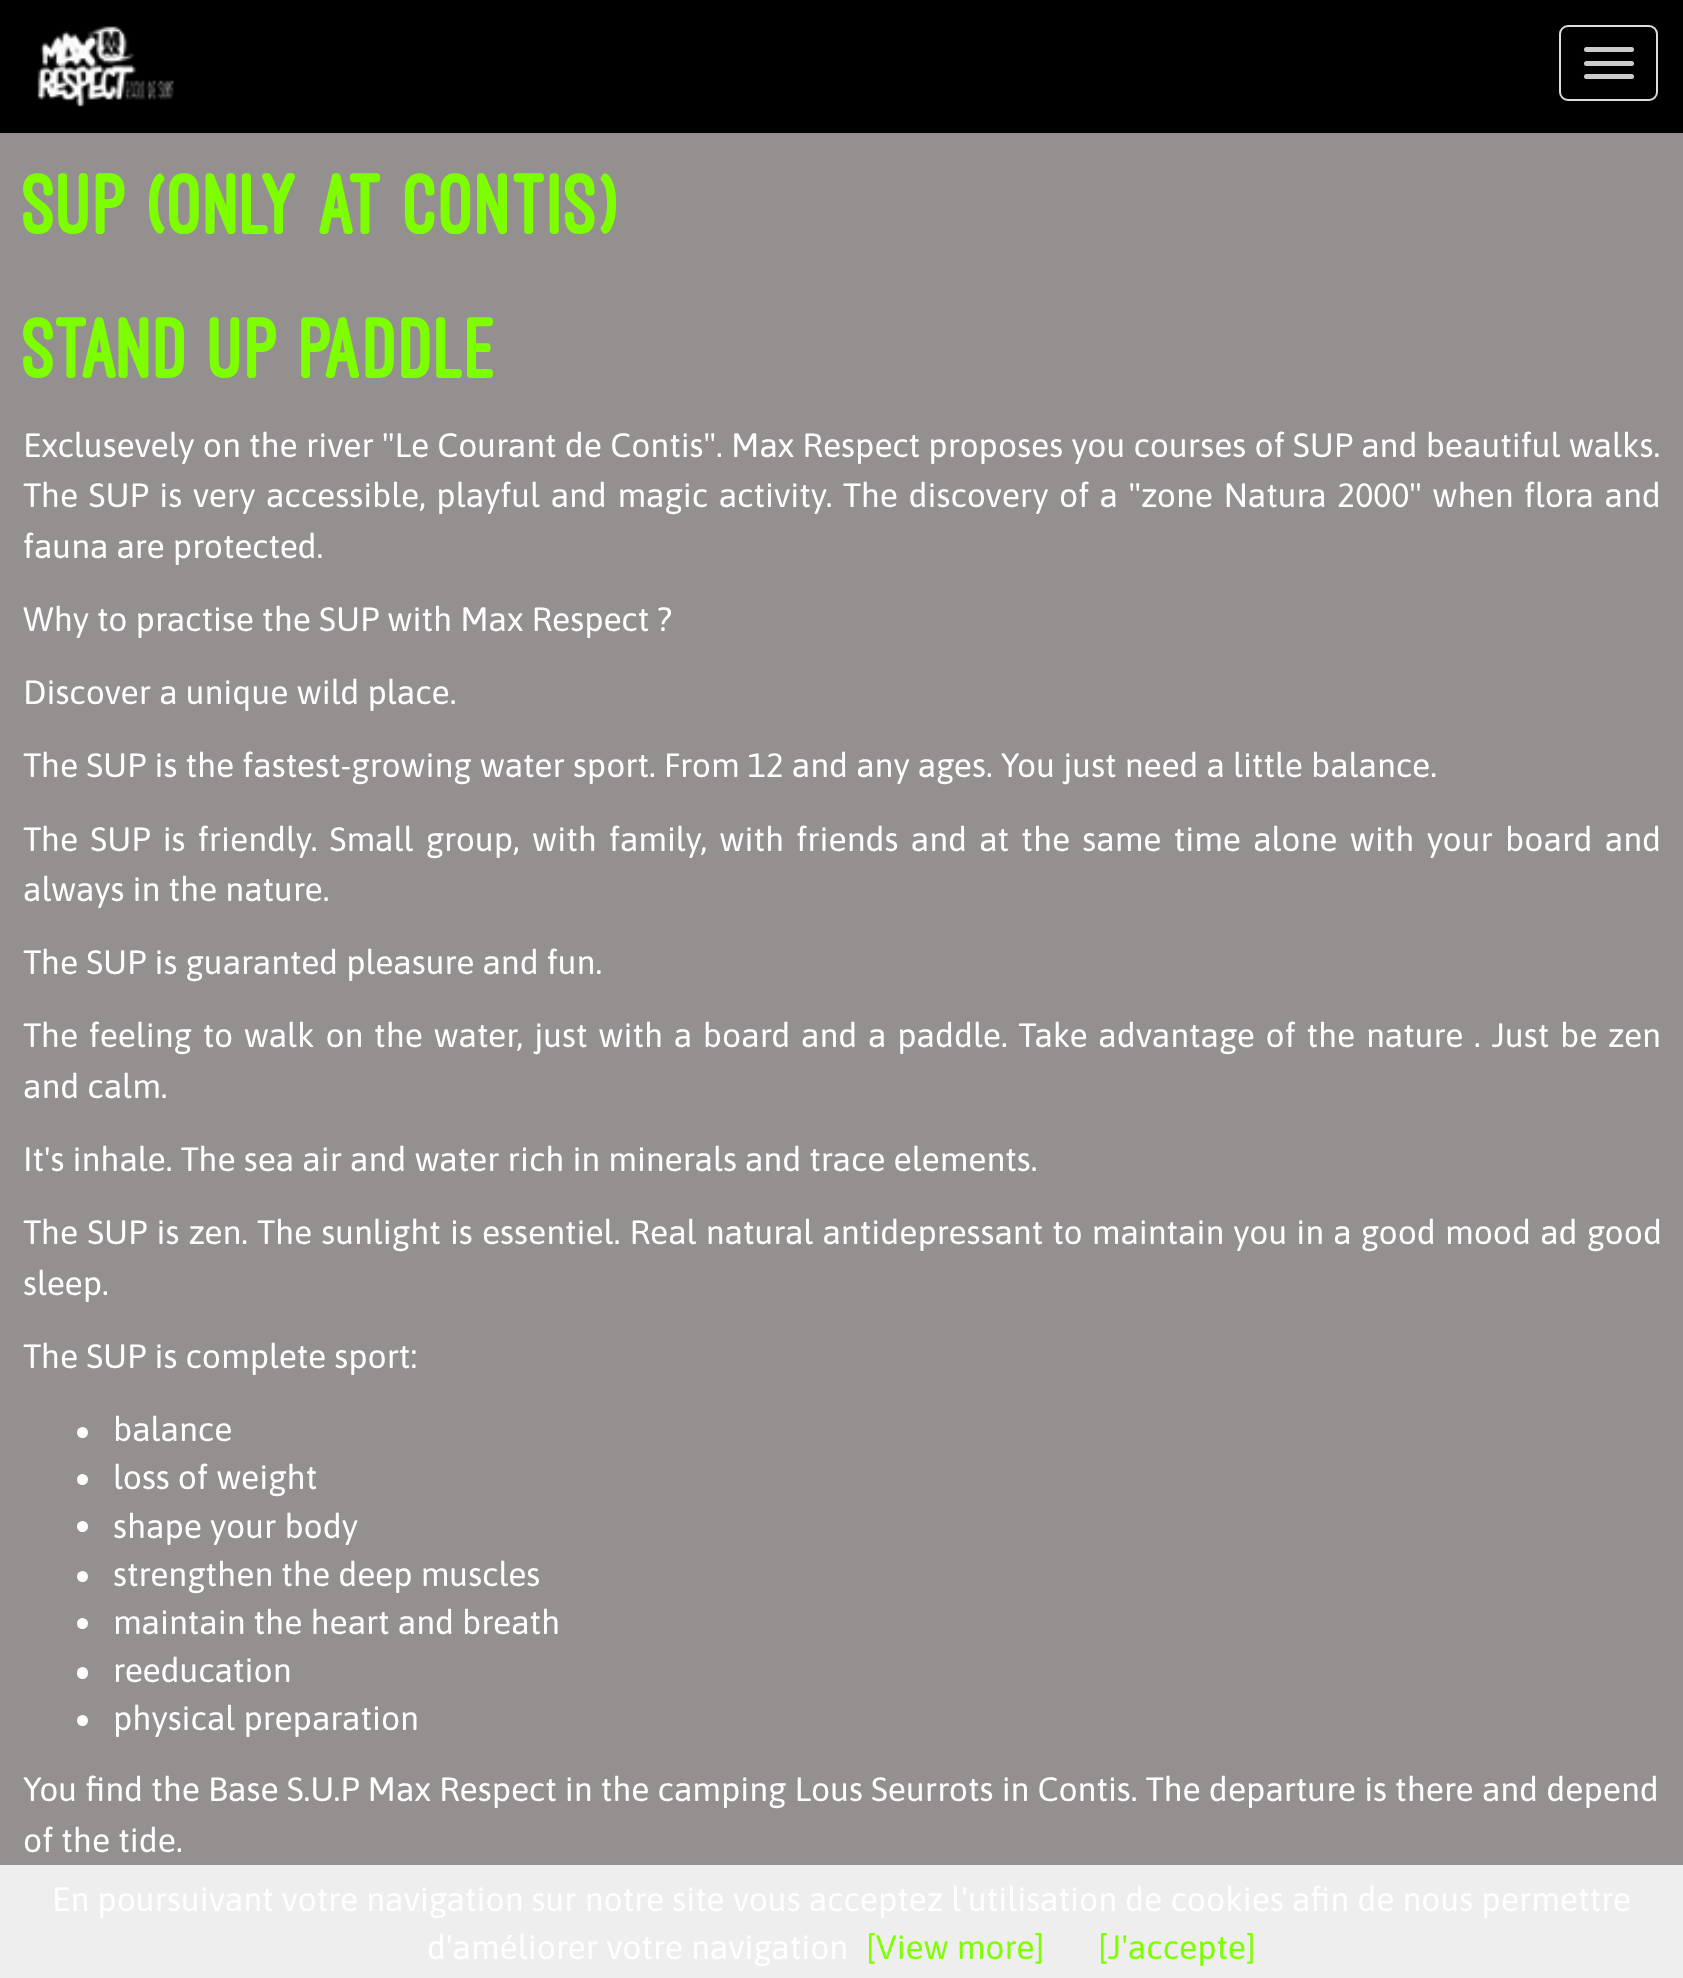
<svg xmlns="http://www.w3.org/2000/svg" width="1683" height="1978">
	<rect width="100%" height="100%" fill="#959090" />
	<rect x="0" y="0" width="1683" height="133" fill="#000000" />
	<image x="37" y="26" width="137" height="81" href="assets/img1.png" />
	<rect x="1560" y="26" width="97" height="74" rx="8" fill="none" stroke="#DDDDDD" stroke-width="2" />
	<rect x="1584" y="47" width="50" height="5" rx="2.5" fill="#CCCCCC" />
	<rect x="1584" y="61" width="50" height="5" rx="2.5" fill="#CCCCCC" />
	<rect x="1584" y="74" width="50" height="5" rx="2.5" fill="#CCCCCC" />
	<g font-family="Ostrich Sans" font-size="90" font-weight="900" fill="#7EFF00">
		<text x="23" y="234">SUP (ONLY AT CONTIS)</text>
		<text x="23" y="378">STAND UP PADDLE</text>
	</g>
	<g font-family="Asap" font-size="33.75" fill="#FFFFFF">
		<text x="23" y="457" word-spacing="0.1">Exclusevely on the river "Le Courant de Contis". Max Respect proposes you courses of SUP and beautiful walks.</text>
		<text x="23" y="507" word-spacing="2.4">The SUP is very accessible, playful and magic activity. The discovery of a "zone Natura 2000" when flora and</text>
		<text x="23" y="558">fauna are protected.</text>
		<text x="23" y="631">Why to practise the SUP with Max Respect ?</text>
		<text x="23" y="704">Discover a unique wild place.</text>
		<text x="23" y="777">The SUP is the fastest-growing water sport. From 12 and any ages. You just need a little balance.</text>
		<text x="23" y="851" word-spacing="4.1">The SUP is friendly. Small group, with family, with friends and at the same time alone with your board and</text>
		<text x="23" y="901">always in the nature.</text>
		<text x="23" y="974">The SUP is guaranted pleasure and fun.</text>
		<text x="23" y="1047" word-spacing="2.6">The feeling to walk on the water, just with a board and a paddle. Take advantage of the nature . Just be zen</text>
		<text x="23" y="1098">and calm.</text>
		<text x="23" y="1171">It's inhale. The sea air and water rich in minerals and trace elements.</text>
		<text x="23" y="1244" word-spacing="1">The SUP is zen. The sunlight is essentiel. Real natural antidepressant to maintain you in a good mood ad good</text>
		<text x="23" y="1295">sleep.</text>
		<text x="23" y="1368">The SUP is complete sport:</text>
	</g>
	<circle cx="82.5" cy="1432.5" r="5.5" fill="#FFFFFF" />
	<text x="113" y="1441" font-family="Asap" font-size="33.75" fill="#FFFFFF">balance</text>
	<circle cx="82.5" cy="1479.5" r="5.5" fill="#FFFFFF" />
	<text x="113" y="1489" font-family="Asap" font-size="33.75" fill="#FFFFFF">loss of weight</text>
	<circle cx="82.5" cy="1526.5" r="5.5" fill="#FFFFFF" />
	<text x="113" y="1538" font-family="Asap" font-size="33.75" fill="#FFFFFF">shape your body</text>
	<circle cx="82.5" cy="1576.5" r="5.5" fill="#FFFFFF" />
	<text x="113" y="1586" font-family="Asap" font-size="33.75" fill="#FFFFFF">strengthen the deep muscles</text>
	<circle cx="82.5" cy="1623.5" r="5.5" fill="#FFFFFF" />
	<text x="113" y="1634" font-family="Asap" font-size="33.75" fill="#FFFFFF">maintain the heart and breath</text>
	<rect x="77" y="1667" width="11" height="12" rx="5.5" fill="#FFFFFF" />
	<text x="113" y="1682" font-family="Asap" font-size="33.75" fill="#FFFFFF">reeducation</text>
	<circle cx="82.5" cy="1720.5" r="5.5" fill="#FFFFFF" />
	<g font-family="Asap" font-size="33.75" fill="#FFFFFF">
		<text x="113" y="1730">physical preparation</text>
		<text x="23" y="1801">You find the Base S.U.P Max Respect in the camping Lous Seurrots in Contis. The departure is there and depend</text>
		<text x="23" y="1852">of the tide.</text>
	</g>
	<rect x="0" y="1865" width="1683" height="113" fill="#EEEEEE" />
	<g font-family="Asap" font-size="33.75" fill="#FFFFFF">
		<text x="52" y="1911">En poursuivant votre navigation sur notre site vous acceptez l'utilisation de cookies afin de nous permettre</text>
		<text x="427" y="1959">d'améliorer votre navigation</text>
	</g>
	<g font-family="Asap" font-size="33.75" fill="#7EFF00">
		<text x="866" y="1959">[View more]</text>
		<text x="1098" y="1959">[J'accepte]</text>
	</g>
</svg>
